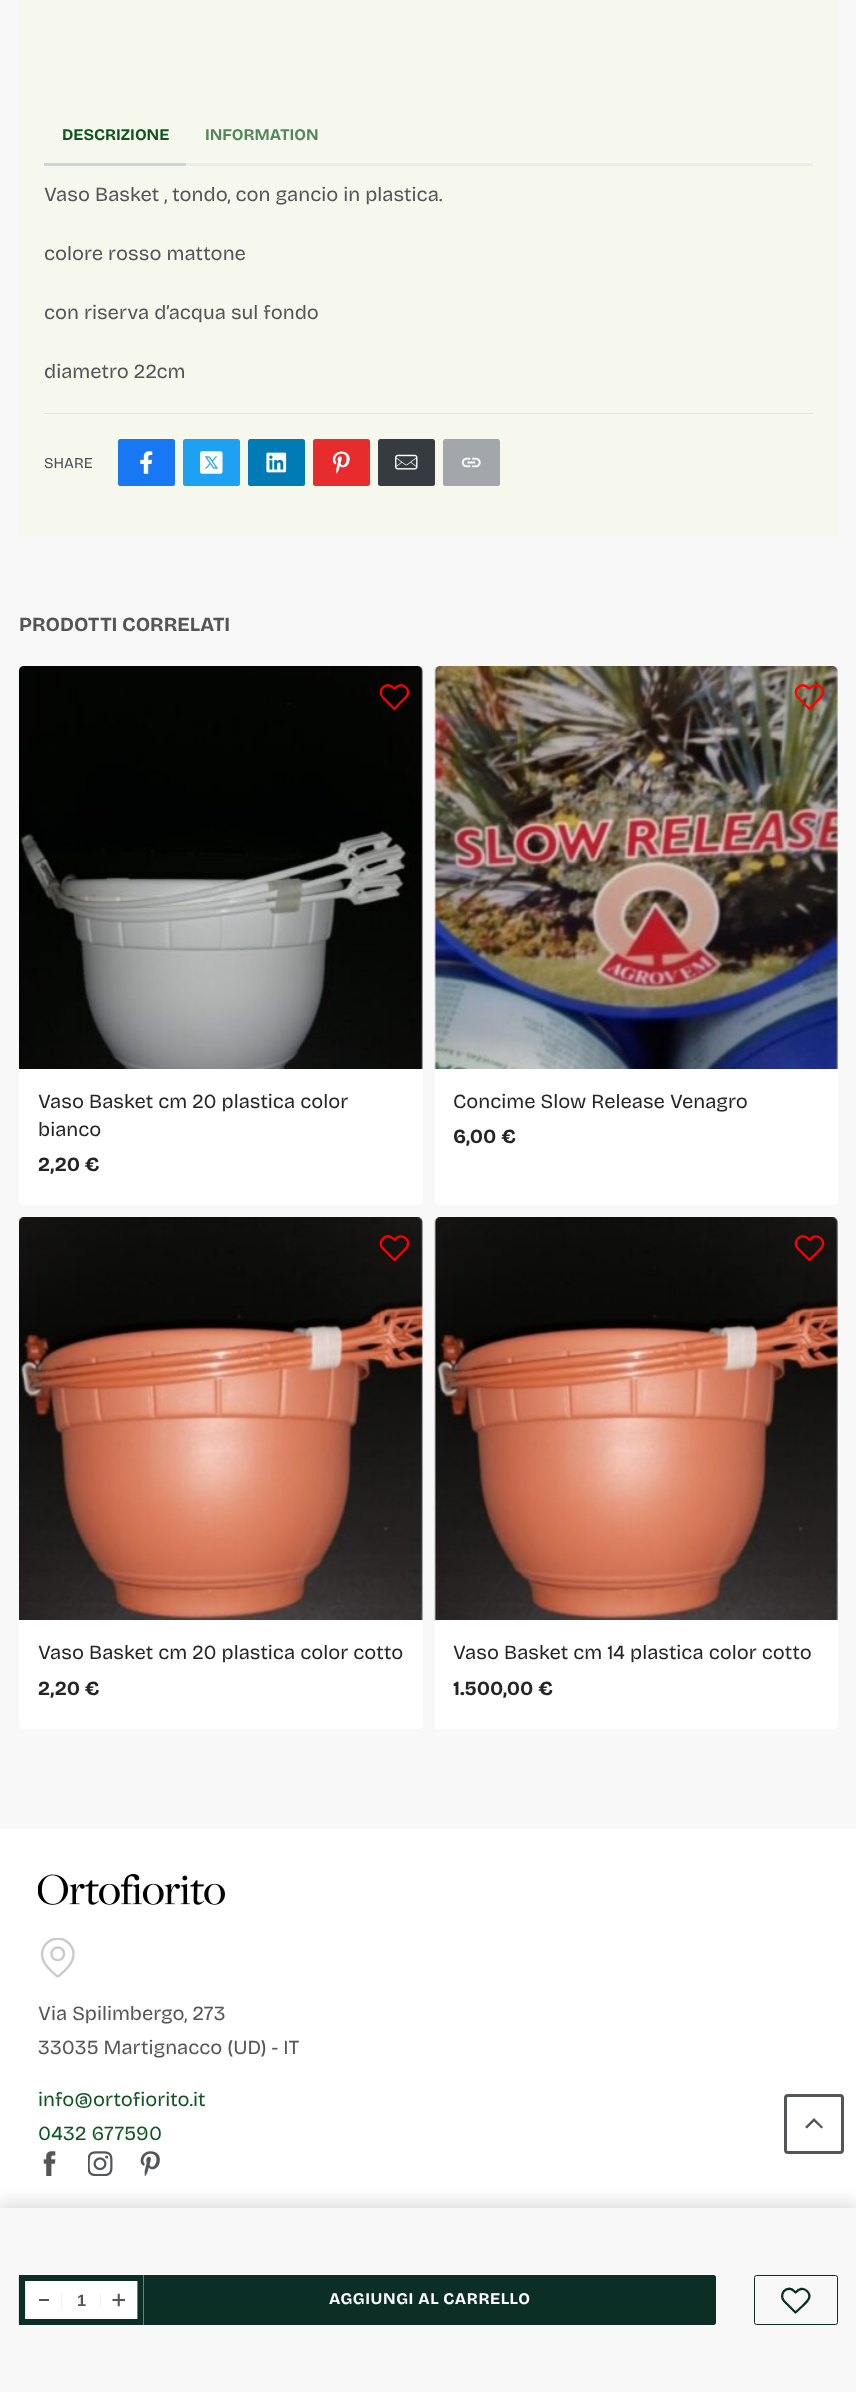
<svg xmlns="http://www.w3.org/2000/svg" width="856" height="2392">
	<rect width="100%" height="100%" fill="#F8F8F8" />
	<rect x="19" y="0" width="819" height="536" fill="#F7F8ED" />
	<rect x="186" y="163" width="627" height="3" fill="#EAEDF0" />
	<text x="62" y="140" font-family="Bricolage Grotesque" font-size="16.25" font-weight="800" fill="#10551F">DESCRIZIONE</text>
	<rect x="44" y="163" width="142" height="3" fill="#CED4DA" />
	<text x="205" y="140" font-family="Bricolage Grotesque" font-size="16.25" font-weight="800" fill="#55865D">INFORMATION</text>
	<rect x="44" y="413" width="769" height="1" fill="#DFE3E7" />
	<g font-family="'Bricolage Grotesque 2'" font-size="20" font-weight="800" fill="#535557">
		<text x="44" y="201">Vaso Basket , tondo, con gancio in plastica.</text>
		<text x="44" y="260">colore rosso mattone</text>
		<text x="44" y="319">con riserva d’acqua sul fondo</text>
		<text x="44" y="378">diametro 22cm</text>
	</g>
	<text x="44" y="468" font-family="'Bricolage Grotesque 2'" font-size="15" font-weight="800" fill="#484F56">SHARE</text>
	<rect x="118" y="439" width="57" height="47" rx="2.5" fill="#1877F2" />
	<image x="140" y="451" width="13" height="23" href="assets/img1.png" />
	<rect x="183" y="439" width="57" height="47" rx="2.5" fill="#1DA1F2" />
	<image x="200" y="451" width="23" height="23" href="assets/img2.png" />
	<rect x="248" y="439" width="57" height="47" rx="2.5" fill="#007BB5" />
	<image x="266" y="452" width="21" height="21" href="assets/img3.png" />
	<rect x="313" y="439" width="57" height="47" rx="2.5" fill="#E82B2D" />
	<image x="332" y="451" width="18" height="23" href="assets/img4.png" />
	<rect x="378" y="439" width="57" height="47" rx="2.5" fill="#353B41" />
	<image x="395" y="454" width="23" height="16" href="assets/img5.png" />
	<rect x="443" y="439" width="57" height="47" rx="2.5" fill="#A3A7AB" />
	<image x="461" y="457" width="20" height="11" href="assets/img6.png" />
	<text x="19" y="631" font-family="Bricolage Grotesque" font-size="20" font-weight="800" fill="#535557">PRODOTTI CORRELATI</text>
	<rect x="19" y="666" width="404" height="539" rx="5" fill="#FFFFFF" />
	<image x="19" y="666" width="404" height="403" href="assets/img7.png" />
	<path d="M406 687.5C402 683.5 397.5 685.5 394.5 688.5L393 687.5C390 684.5 385.5 684.5 383 687.5C380 690 380 694.5 383 697.5L394.5 709L401 702C405 698.5 411.5 693 406 687.5Z" fill="none" stroke="#FF0000" stroke-width="2.3" stroke-linecap="round" stroke-linejoin="round" />
	<g font-family="'Bricolage Grotesque 2'" font-size="20" font-weight="800" fill="#252525">
		<text x="38" y="1108">Vaso Basket cm 20 plastica color</text>
		<text x="38" y="1136">bianco</text>
	</g>
	<text x="38" y="1171" font-family="Bricolage Grotesque" font-size="20" font-weight="800" fill="#252525">2,20 €</text>
	<rect x="435" y="666" width="403" height="539" rx="5" fill="#FFFFFF" />
	<image x="434" y="666" width="404" height="404" href="assets/img8.png" />
	<path d="M821 687.5C817 683.5 812.5 685.5 809.5 688.5L808 687.5C805 684.5 800.5 684.5 798 687.5C795 690 795 694.5 798 697.5L809.5 709L816 702C820 698.5 826.5 693 821 687.5Z" fill="none" stroke="#FF0000" stroke-width="2.3" stroke-linecap="round" stroke-linejoin="round" />
	<rect x="435" y="1069" width="403" height="1" fill="#FFFFFF" />
	<text x="453" y="1108" font-family="'Bricolage Grotesque 2'" font-size="20" font-weight="800" fill="#252525">Concime Slow Release Venagro</text>
	<text x="453" y="1143" font-family="Bricolage Grotesque" font-size="20" font-weight="800" fill="#252525">6,00 €</text>
	<rect x="19" y="1218" width="404" height="511" rx="5" fill="#FFFFFF" />
	<image x="19" y="1217" width="404" height="403" href="assets/img9.png" />
	<path d="M406 1238.5C402 1234.5 397.5 1236.5 394.5 1240L393 1238.5C390 1235.5 385.5 1235.5 383 1238.5C380 1241.5 380 1246 383 1248.5L394.5 1260L401 1253.5C405 1249.5 411.5 1244.5 406 1238.5Z" fill="none" stroke="#FF0000" stroke-width="2.3" stroke-linecap="round" stroke-linejoin="round" />
	<text x="38" y="1659" font-family="'Bricolage Grotesque 2'" font-size="20" font-weight="800" fill="#252525">Vaso Basket cm 20 plastica color cotto</text>
	<text x="38" y="1695" font-family="Bricolage Grotesque" font-size="20" font-weight="800" fill="#252525">2,20 €</text>
	<rect x="435" y="1218" width="403" height="511" rx="5" fill="#FFFFFF" />
	<image x="434" y="1217" width="404" height="404" href="assets/img10.png" />
	<path d="M821 1238.5C817 1234.5 812.5 1236.5 809.5 1240L808 1238.5C805 1235.5 800.5 1235.5 798 1238.5C795 1241.5 795 1246 798 1248.5L809.5 1260L816 1253.5C820 1249.5 826.5 1244.5 821 1238.5Z" fill="none" stroke="#FF0000" stroke-width="2.3" stroke-linecap="round" stroke-linejoin="round" />
	<path d="M435 1620H838V1724C838 1727 836 1729 833 1729H440C437 1729 435 1727 435 1724Z" fill="#FFFFFF" />
	<text x="453" y="1659" font-family="'Bricolage Grotesque 2'" font-size="20" font-weight="800" fill="#252525">Vaso Basket cm 14 plastica color cotto</text>
	<text x="453" y="1695" font-family="Bricolage Grotesque" font-size="20" font-weight="800" fill="#252525">1.500,00 €</text>
	<rect x="0" y="1829" width="856" height="379" fill="#FFFFFF" />
	<image x="38" y="1874" width="187" height="31" href="assets/img11.png" />
	<image x="40" y="1938" width="35" height="40" href="assets/img12.png" />
	<g font-family="'Bricolage Grotesque 2'" font-size="20" font-weight="800" fill="#535557">
		<text x="38" y="2020">Via Spilimbergo, 273</text>
		<text x="38" y="2054">33035 Martignacco (UD) - IT</text>
	</g>
	<g font-family="'Bricolage Grotesque 2'" font-size="20" font-weight="800" fill="#10551F">
		<text x="38" y="2106">info@ortofiorito.it</text>
		<text x="38" y="2140">0432 677590</text>
	</g>
	<image x="43" y="2151" width="13" height="25" href="assets/img13.png" />
	<image x="88" y="2151" width="25" height="25" href="assets/img14.png" />
	<image x="140" y="2151" width="20" height="25" href="assets/img15.png" />
	<rect x="785.5" y="2095.5" width="57" height="57" rx="2.5" fill="none" stroke="#535557" stroke-width="3" />
	<path d="M814 2118L823 2127L821.5 2128.5L814 2121.5L807 2128.5L805 2127Z" fill="#535557" />
	<rect x="-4" y="2204" width="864" height="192" fill="#000000" fill-opacity="0.15" filter="blur(9.5px)" />
	<rect x="0" y="2208" width="856" height="184" fill="#F8F8F8" />
	<rect x="25" y="2281" width="113" height="38" fill="#FFFFFF" />
	<path d="M22 2278H140.5V2322H22Z" fill="none" stroke="#0C2F25" stroke-width="6.2" />
	<rect x="39" y="2299" width="10" height="2" fill="#535557" />
	<rect x="61" y="2293" width="1" height="15" fill="#F1F1F2" />
	<text x="77" y="2306" font-family="Liberation Sans" font-size="16.25" font-weight="700" fill="#535557">1</text>
	<rect x="100" y="2293" width="1" height="15" fill="#F1F1F2" />
	<image x="112" y="2293" width="13" height="14" href="assets/img16.png" />
	<path d="M144 2275H713.5C715 2275 716 2276 716 2277.5V2322.5C716 2324 715 2325 713.5 2325H144Z" fill="#0C2F25" />
	<text x="329" y="2304" font-family="Bricolage Grotesque" font-size="16.25" font-weight="800" letter-spacing="0.6" fill="#FFFFFF">AGGIUNGI AL CARRELLO</text>
	<rect x="754.5" y="2275.5" width="83" height="49" rx="2" fill="none" stroke="#0C2F25" />
	<path d="M807 2291C803 2287 799 2289 795.5 2292.5L794 2291C791.5 2288 787 2288 784 2291C781.5 2294 781.5 2298.5 784 2301L795.5 2312.5L802.5 2306C806.5 2302 813 2297 807 2291Z" fill="none" stroke="#0C2F25" stroke-width="2.3" stroke-linecap="round" stroke-linejoin="round" />
</svg>
